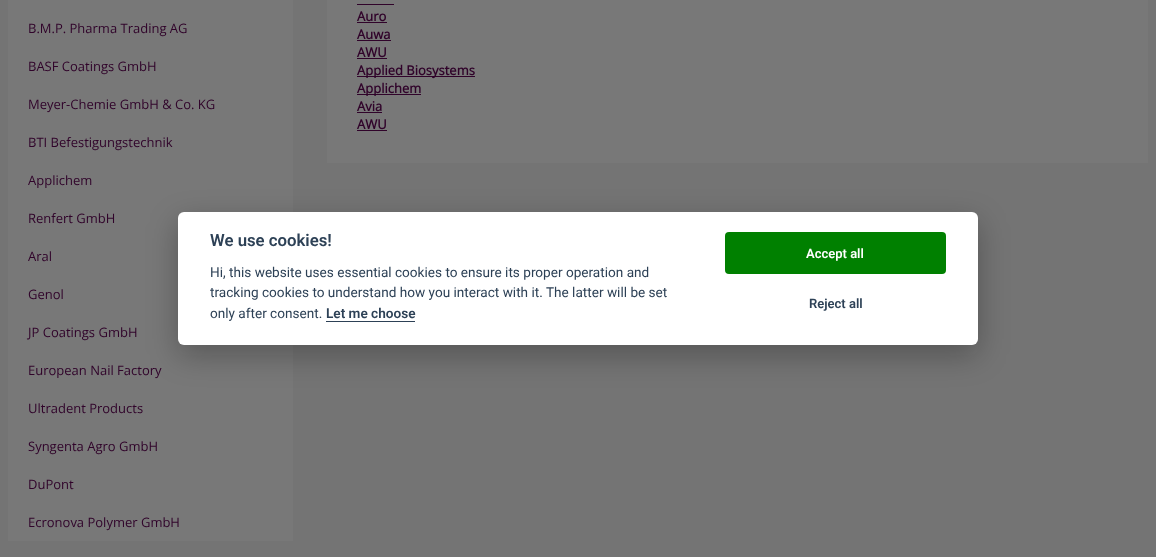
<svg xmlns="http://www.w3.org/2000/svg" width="1156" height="557">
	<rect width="100%" height="100%" fill="#747474" />
	<rect x="8" y="0" width="285" height="541" fill="#787878" />
	<g font-family="Open Sans" font-size="13" fill="#30032A">
		<text x="28" y="33">B.M.P. Pharma Trading AG</text>
		<text x="28" y="71">BASF Coatings GmbH</text>
		<text x="28" y="109">Meyer-Chemie GmbH &amp; Co. KG</text>
		<text x="28" y="147">BTI Befestigungstechnik</text>
		<text x="28" y="185">Applichem</text>
		<text x="28" y="223">Renfert GmbH</text>
		<text x="28" y="261">Aral</text>
		<text x="28" y="299">Genol</text>
		<text x="28" y="337">JP Coatings GmbH</text>
		<text x="28" y="375">European Nail Factory</text>
		<text x="28" y="413">Ultradent Products</text>
		<text x="28" y="451">Syngenta Agro GmbH</text>
		<text x="28" y="489">DuPont</text>
		<text x="28" y="527">Ecronova Polymer GmbH</text>
	</g>
	<rect x="327" y="0" width="821" height="163" fill="#787878" />
	<rect x="357" y="4" width="37" height="1" fill="#30032A" />
	<text x="357" y="21" font-family="Open Sans" font-size="13" font-weight="700" fill="#30032A">Auro</text>
	<rect x="357" y="22" width="30" height="1" fill="#30032A" />
	<text x="357" y="39" font-family="Open Sans" font-size="13" font-weight="700" fill="#30032A">Auwa</text>
	<rect x="357" y="40" width="34" height="1" fill="#30032A" />
	<text x="357" y="57" font-family="Open Sans" font-size="13" font-weight="700" fill="#30032A">AWU</text>
	<rect x="357" y="58" width="30" height="1" fill="#30032A" />
	<rect x="357" y="76" width="118" height="1" fill="#30032A" />
	<text x="357" y="75" font-family="Open Sans" font-size="13" font-weight="700" fill="#30032A">Applied Biosystems</text>
	<rect x="357" y="94" width="64" height="1" fill="#30032A" />
	<g font-family="Open Sans" font-size="13" font-weight="700" fill="#30032A">
		<text x="357" y="93">Applichem</text>
		<text x="357" y="111">Avia</text>
	</g>
	<rect x="357" y="112" width="25" height="1" fill="#30032A" />
	<text x="357" y="129" font-family="Open Sans" font-size="13" font-weight="700" fill="#30032A">AWU</text>
	<rect x="357" y="130" width="30" height="1" fill="#30032A" />
	<rect x="178" y="222" width="800" height="133" rx="6" fill="#020203" fill-opacity="0.28" filter="blur(15px)" />
	<rect x="178" y="212" width="800" height="133" rx="6" fill="#FFFFFF" />
	<text x="210" y="246" font-family="Roboto" font-size="16.75" font-weight="600" fill="#2D4156">We use cookies!</text>
	<g font-family="Roboto" font-size="13.6" fill="#2D4156">
		<text x="210" y="277">Hi, this website uses essential cookies to ensure its proper operation and</text>
		<text x="210" y="297">tracking cookies to understand how you interact with it. The latter will be set</text>
		<text x="210" y="318">only after consent.</text>
	</g>
	<text x="326" y="318" font-family="Roboto" font-size="13.6" font-weight="600" fill="#2D4156">Let me choose</text>
	<rect x="326" y="321" width="89" height="1" fill="#2D4156" />
	<rect x="725" y="232" width="221" height="42" rx="4" fill="#008000" />
	<text x="806" y="258" font-family="Roboto" font-size="13" font-weight="600" fill="#FFFFFF">Accept all</text>
	<text x="809" y="308" font-family="Roboto" font-size="13" font-weight="600" fill="#2D4156">Reject all</text>
</svg>
